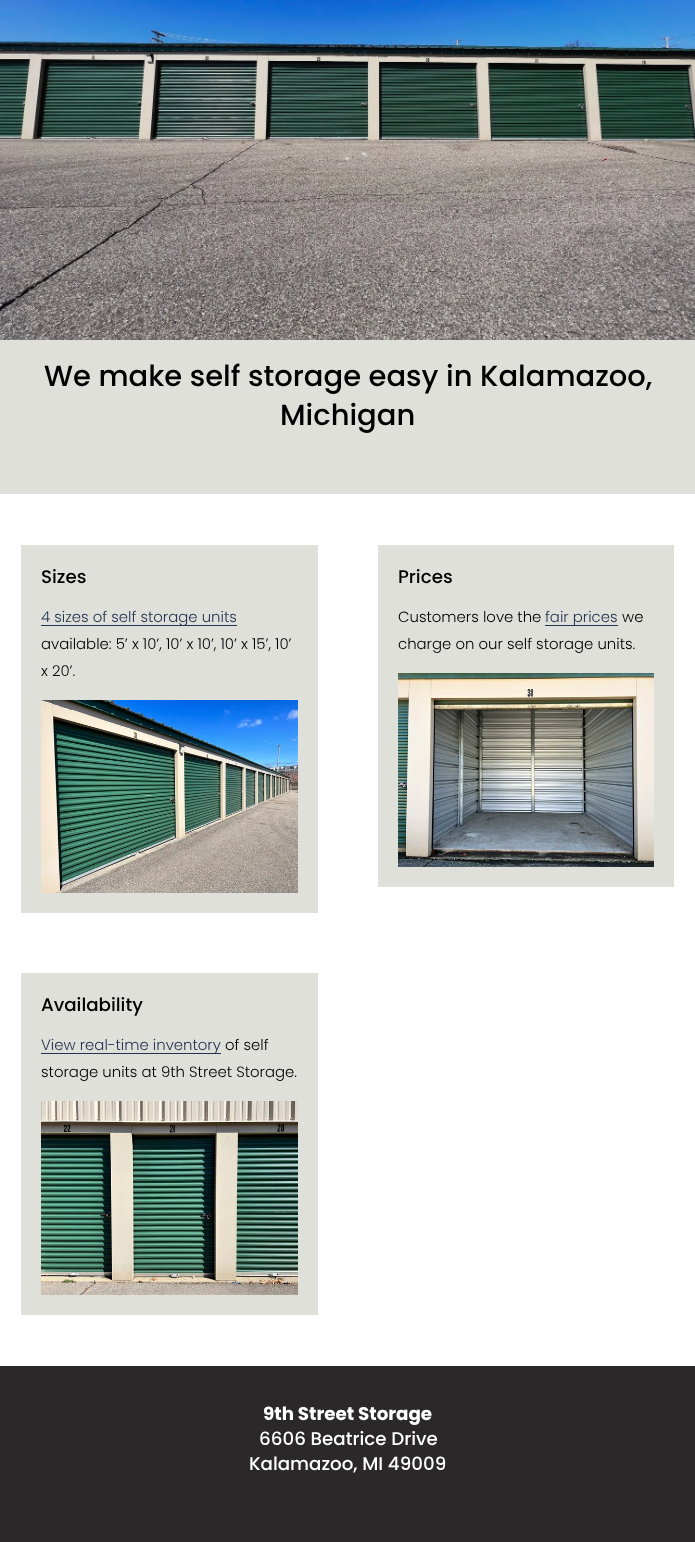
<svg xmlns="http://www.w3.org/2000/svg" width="695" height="1542">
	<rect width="100%" height="100%" fill="#FFFFFF" />
	<image x="0" y="0" width="695" height="340" href="assets/img1.png" />
	<rect x="0" y="340" width="695" height="154" fill="#E0E0DB" />
	<g font-family="Poppins" font-size="29" font-weight="500" fill="#000000">
		<text x="44" y="386">We make self storage easy in Kalamazoo,</text>
		<text x="280" y="425">Michigan</text>
	</g>
	<rect x="21" y="545" width="297" height="368" fill="#E0E0DB" />
	<text x="41" y="583" font-family="Poppins" font-size="18.25" font-weight="500" fill="#000000">Sizes</text>
	<rect x="41" y="625" width="196" height="1" fill="#253551" />
	<text x="41" y="622" font-family="Poppins" font-size="14.9" font-weight="300" fill="#253551">4 sizes of self storage units</text>
	<g font-family="Poppins" font-size="14.9" font-weight="300" fill="#000000">
		<text x="41" y="649">available: 5’ x 10’, 10’ x 10’, 10’ x 15’, 10’</text>
		<text x="41" y="676">x 20’.</text>
	</g>
	<image x="41" y="700" width="257" height="193" href="assets/img2.png" />
	<rect x="378" y="545" width="296" height="342" fill="#E0E0DB" />
	<text x="398" y="583" font-family="Poppins" font-size="18.25" font-weight="500" fill="#000000">Prices</text>
	<text x="398" y="622" font-family="Poppins" font-size="14.9" font-weight="300" fill="#000000">Customers love the</text>
	<rect x="545" y="625" width="73" height="1" fill="#253551" />
	<text x="545" y="622" font-family="Poppins" font-size="14.9" font-weight="300" fill="#253551">fair prices</text>
	<g font-family="Poppins" font-size="14.9" font-weight="300" fill="#000000">
		<text x="622" y="622">we</text>
		<text x="398" y="649">charge on our self storage units.</text>
	</g>
	<image x="398" y="673" width="256" height="194" href="assets/img3.png" />
	<rect x="21" y="973" width="297" height="342" fill="#E0E0DB" />
	<text x="41" y="1011" font-family="Poppins" font-size="18.25" font-weight="500" fill="#000000">Availability</text>
	<rect x="41" y="1053" width="180" height="1" fill="#253551" />
	<text x="41" y="1050" font-family="Poppins" font-size="14.9" font-weight="300" fill="#253551">View real-time inventory</text>
	<g font-family="Poppins" font-size="14.9" font-weight="300" fill="#000000">
		<text x="225" y="1050">of self</text>
		<text x="41" y="1077">storage units at 9th Street Storage.</text>
	</g>
	<image x="41" y="1101" width="257" height="194" href="assets/img4.png" />
	<rect x="0" y="1366" width="695" height="176" fill="#2A2829" />
	<text x="263" y="1420" font-family="Poppins" font-size="18.25" font-weight="700" fill="#FFFFFF">9th Street Storage</text>
	<g font-family="Poppins" font-size="18.25" font-weight="500" fill="#FFFFFF">
		<text x="259" y="1445">6606 Beatrice Drive</text>
		<text x="249" y="1470">Kalamazoo, MI 49009</text>
	</g>
</svg>
